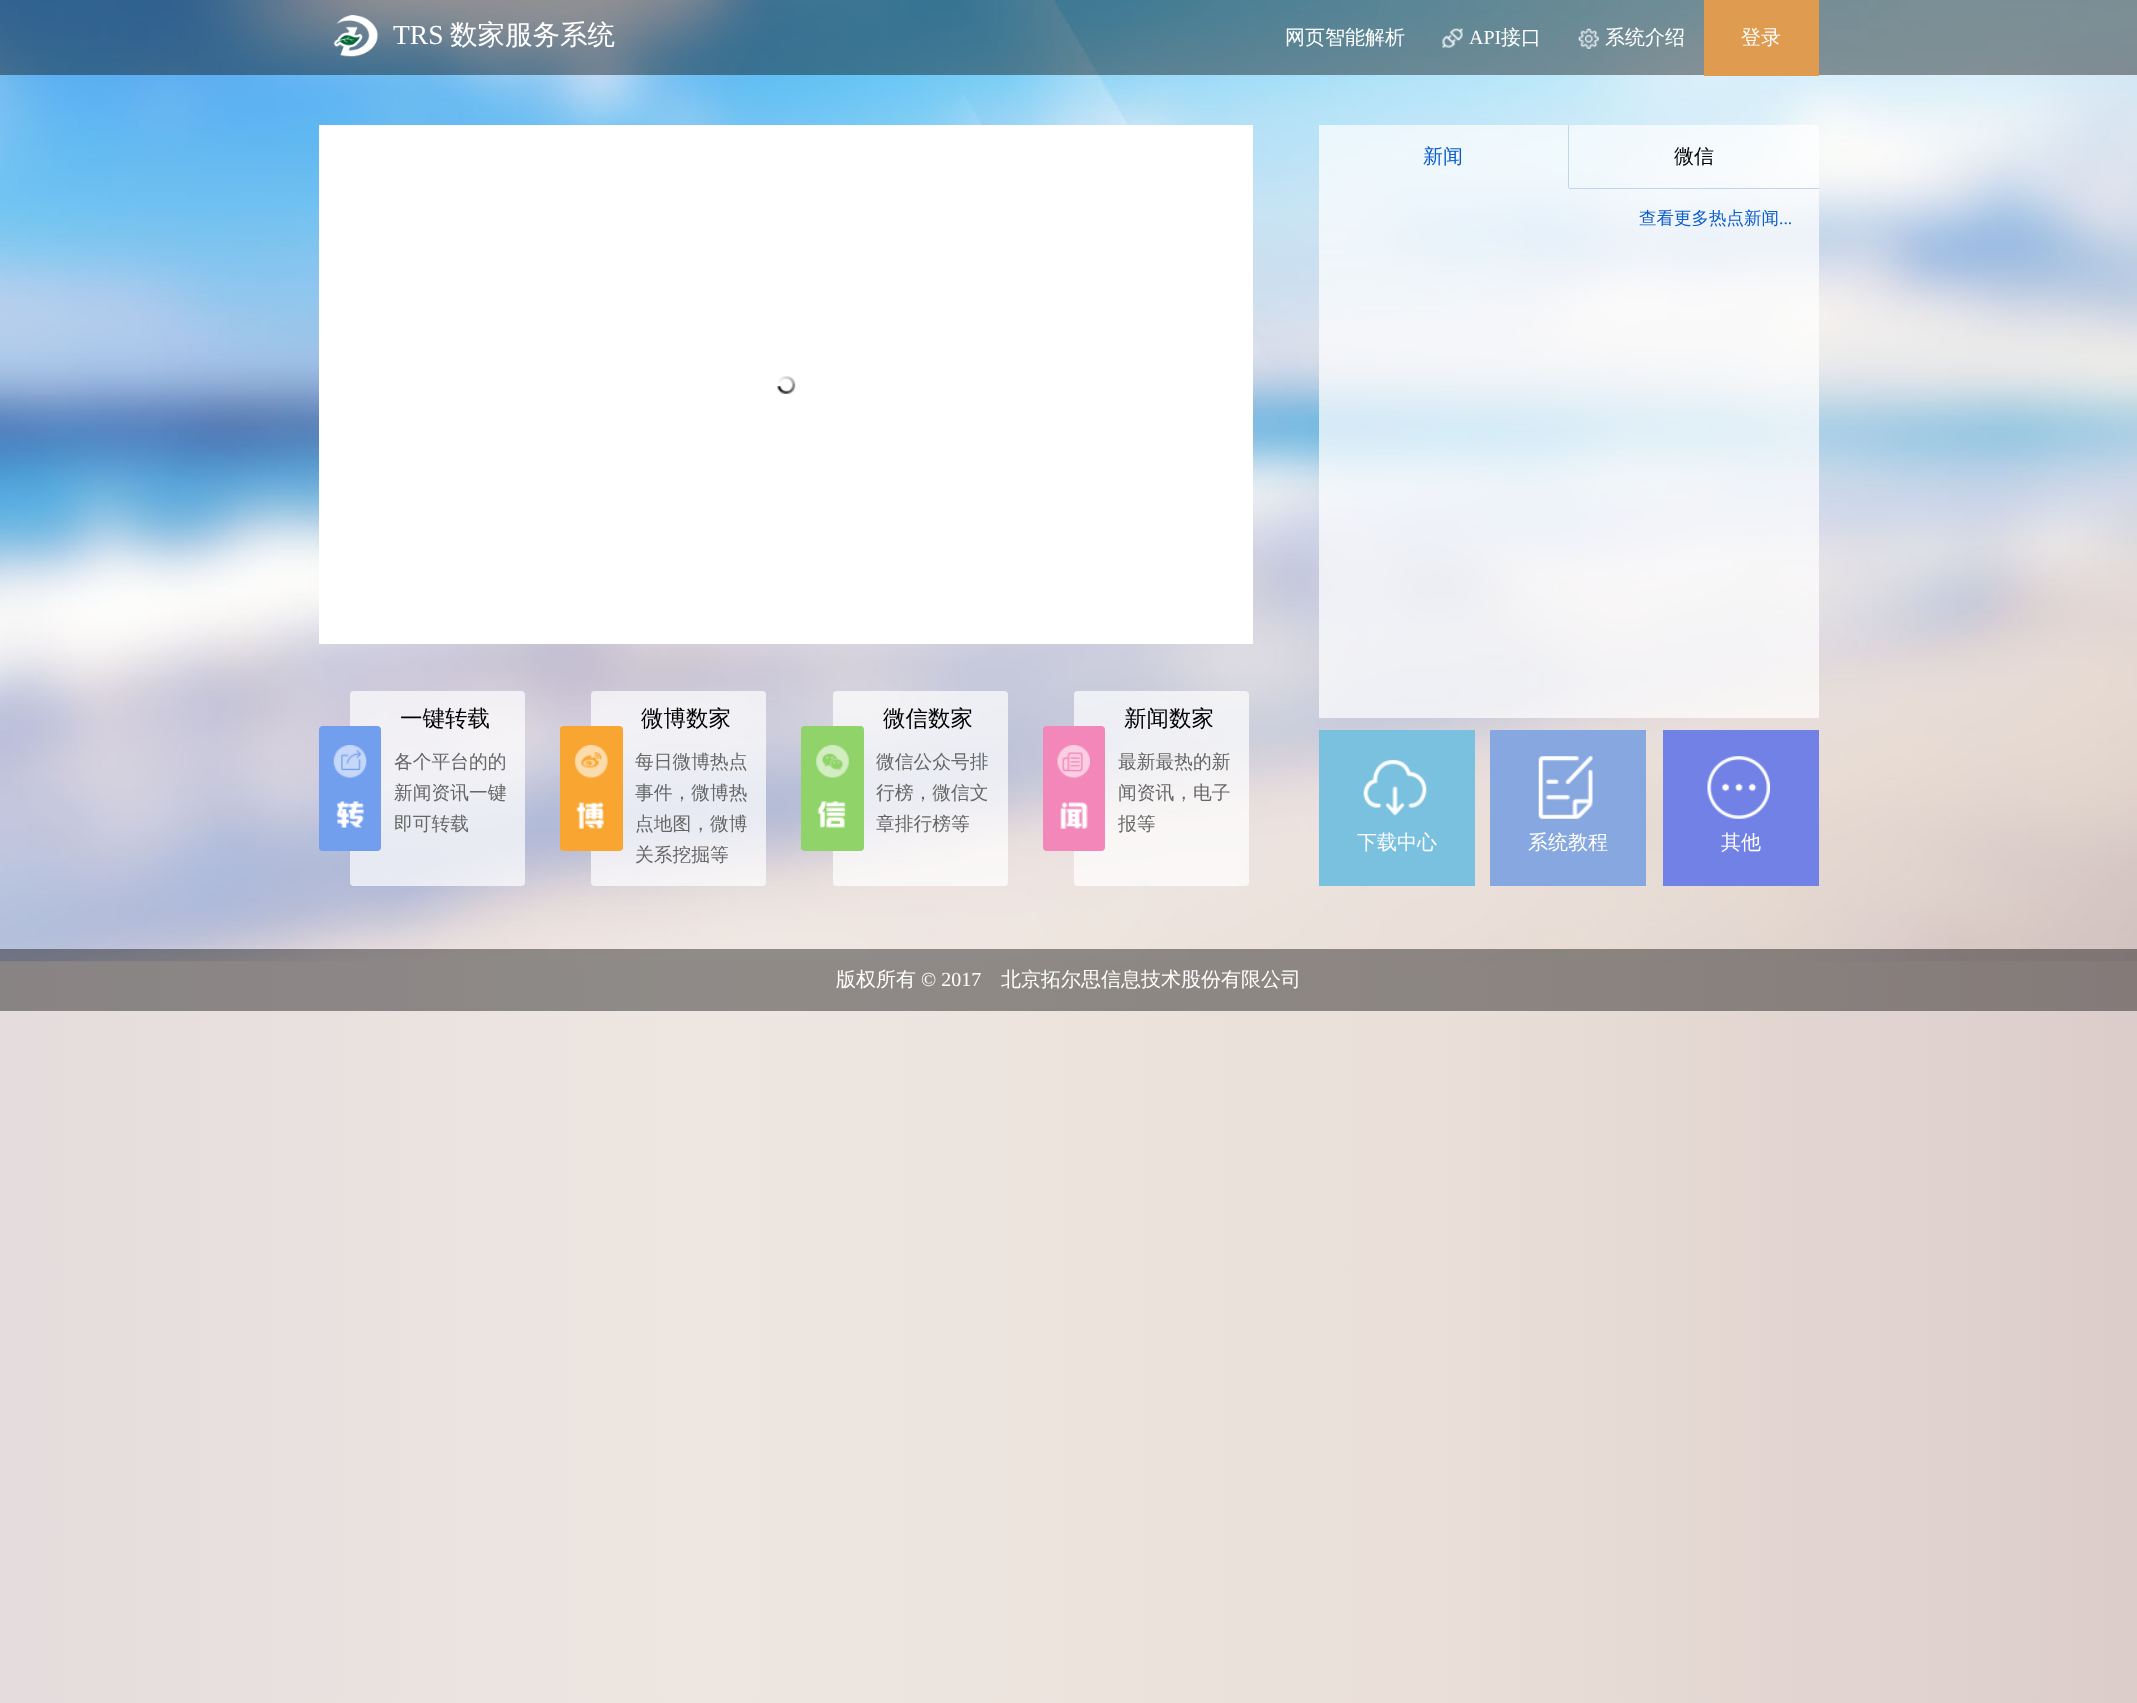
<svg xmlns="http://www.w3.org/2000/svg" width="2137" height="1703">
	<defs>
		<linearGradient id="g1" gradientUnits="userSpaceOnUse" x1="0" y1="506" x2="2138" y2="506"><stop offset="0" stop-color="#E5DCDD" /><stop offset="0.33" stop-color="#EEE7E1" /><stop offset="0.67" stop-color="#EADFD9" /><stop offset="1" stop-color="#DCCDCA" /></linearGradient>
	</defs>
	<rect width="100%" height="100%" fill="#FFFFFF" />
	<rect x="0" y="961" width="2137" height="742" fill="url(#g1)" />
	<image x="0" y="0" width="2137" height="962" href="assets/img1.png" />
	<rect x="0" y="0" width="2137" height="75" fill="#000000" fill-opacity="0.4" />
	<image x="333" y="15" width="45" height="42" href="assets/img2.png" />
	<text x="393" y="44" font-family="Liberation Serif" font-size="27.5" fill="#FFFFFF">TRS</text>
	<text x="450" y="44" font-family="WenQuanYi Zen Hei" font-size="27.5" font-weight="500" fill="#FFFFFF">数家服务系统</text>
	<text x="1285" y="44" font-family="WenQuanYi Zen Hei" font-size="20" font-weight="500" fill="#FFFFFF">网页智能解析</text>
	<image x="1442" y="28" width="21" height="20" href="assets/img3.png" />
	<text x="1469" y="44" font-family="Liberation Serif" font-size="20" fill="#FFFFFF">API</text>
	<text x="1501" y="44" font-family="WenQuanYi Zen Hei" font-size="20" font-weight="500" fill="#FFFFFF">接口</text>
	<image x="1578" y="28" width="21" height="21" href="assets/img4.png" />
	<text x="1605" y="44" font-family="WenQuanYi Zen Hei" font-size="20" font-weight="500" fill="#FFFFFF">系统介绍</text>
	<rect x="1704" y="0" width="115" height="76" fill="#DF9B50" />
	<text x="1741" y="44" font-family="WenQuanYi Zen Hei" font-size="20" font-weight="500" fill="#FFFFFF">登录</text>
	<rect x="319" y="125" width="934" height="519" fill="#FFFFFF" />
	<image x="777" y="376" width="19" height="18" href="assets/img5.png" />
	<rect x="350" y="691" width="175" height="195" rx="4" fill="#FFFFFF" fill-opacity="0.7" />
	<text x="400" y="726" font-family="WenQuanYi Zen Hei" font-size="22.5" font-weight="500" fill="#000000">一键转载</text>
	<rect x="319" y="726" width="62" height="125" rx="4" fill="#719EED" />
	<image x="333" y="745" width="34" height="33" href="assets/img6.png" />
	<image x="336" y="801" width="28" height="27" href="assets/img7.png" />
	<g font-family="WenQuanYi Zen Hei" font-size="18.75" font-weight="500" fill="#666666">
		<text x="394" y="768">各个平台的的</text>
		<text x="394" y="799">新闻资讯一键</text>
		<text x="394" y="830">即可转载</text>
	</g>
	<rect x="591" y="691" width="175" height="195" rx="4" fill="#FFFFFF" fill-opacity="0.7" />
	<text x="641" y="726" font-family="WenQuanYi Zen Hei" font-size="22.5" font-weight="500" fill="#000000">微博数家</text>
	<rect x="560" y="726" width="63" height="125" rx="4" fill="#F8A631" />
	<image x="575" y="745" width="33" height="33" href="assets/img8.png" />
	<image x="576" y="802" width="28" height="27" href="assets/img9.png" />
	<g font-family="WenQuanYi Zen Hei" font-size="18.75" font-weight="500" fill="#666666">
		<text x="635" y="768">每日微博热点</text>
		<text x="635" y="799">事件，微博热</text>
		<text x="635" y="830">点地图，微博</text>
		<text x="635" y="861">关系挖掘等</text>
	</g>
	<rect x="833" y="691" width="175" height="195" rx="4" fill="#FFFFFF" fill-opacity="0.7" />
	<text x="883" y="726" font-family="WenQuanYi Zen Hei" font-size="22.5" font-weight="500" fill="#000000">微信数家</text>
	<rect x="801" y="726" width="63" height="125" rx="4" fill="#90D368" />
	<image x="816" y="745" width="33" height="33" href="assets/img10.png" />
	<image x="817" y="801" width="29" height="27" href="assets/img11.png" />
	<g font-family="WenQuanYi Zen Hei" font-size="18.75" font-weight="500" fill="#666666">
		<text x="876" y="768">微信公众号排</text>
		<text x="876" y="799">行榜，微信文</text>
		<text x="876" y="830">章排行榜等</text>
	</g>
	<rect x="1074" y="691" width="175" height="195" rx="4" fill="#FFFFFF" fill-opacity="0.7" />
	<text x="1124" y="726" font-family="WenQuanYi Zen Hei" font-size="22.5" font-weight="500" fill="#000000">新闻数家</text>
	<rect x="1043" y="726" width="62" height="125" rx="4" fill="#F387BA" />
	<image x="1057" y="745" width="33" height="33" href="assets/img12.png" />
	<image x="1060" y="802" width="28" height="27" href="assets/img13.png" />
	<g font-family="WenQuanYi Zen Hei" font-size="18.75" font-weight="500" fill="#666666">
		<text x="1118" y="768">最新最热的新</text>
		<text x="1118" y="799">闻资讯，电子</text>
		<text x="1118" y="830">报等</text>
	</g>
	<rect x="1319" y="125" width="500" height="593" fill="#FFFFFF" fill-opacity="0.7" />
	<rect x="1568" y="125" width="1" height="63" fill="#C1D4F5" />
	<text x="1423" y="163" font-family="WenQuanYi Zen Hei" font-size="20" font-weight="500" fill="#0C5DCA">新闻</text>
	<rect x="1569" y="188" width="250" height="1" fill="#C1D4F5" />
	<text x="1674" y="163" font-family="WenQuanYi Zen Hei" font-size="20" font-weight="500" fill="#000000">微信</text>
	<text x="1639" y="224" font-family="WenQuanYi Zen Hei" font-size="17.5" font-weight="500" fill="#0C5DCA">查看更多热点新闻</text>
	<text x="1779" y="224" font-family="Liberation Serif" font-size="17.5" fill="#0C5DCA">...</text>
	<rect x="1319" y="730" width="156" height="156" fill="#7AC1DF" />
	<image x="1363" y="759" width="64" height="57" href="assets/img14.png" />
	<text x="1357" y="849" font-family="WenQuanYi Zen Hei" font-size="20" font-weight="500" fill="#FFFFFF">下载中心</text>
	<rect x="1490" y="730" width="156" height="156" fill="#86A7DF" />
	<image x="1538" y="756" width="55" height="63" href="assets/img15.png" />
	<text x="1528" y="849" font-family="WenQuanYi Zen Hei" font-size="20" font-weight="500" fill="#FFFFFF">系统教程</text>
	<rect x="1663" y="730" width="156" height="156" fill="#7181E5" />
	<image x="1707" y="756" width="63" height="63" href="assets/img16.png" />
	<text x="1721" y="849" font-family="WenQuanYi Zen Hei" font-size="20" font-weight="500" fill="#FFFFFF">其他</text>
	<rect x="0" y="949" width="2137" height="62" fill="#000000" fill-opacity="0.4" />
	<text x="836" y="986" font-family="WenQuanYi Zen Hei" font-size="20" font-weight="500" fill="#FFFFFF">版权所有</text>
	<text x="921" y="986" font-family="Liberation Serif" font-size="20" fill="#FFFFFF">© 2017</text>
	<text x="1001" y="986" font-family="WenQuanYi Zen Hei" font-size="20" font-weight="500" fill="#FFFFFF">北京拓尔思信息技术股份有限公司</text>
</svg>
